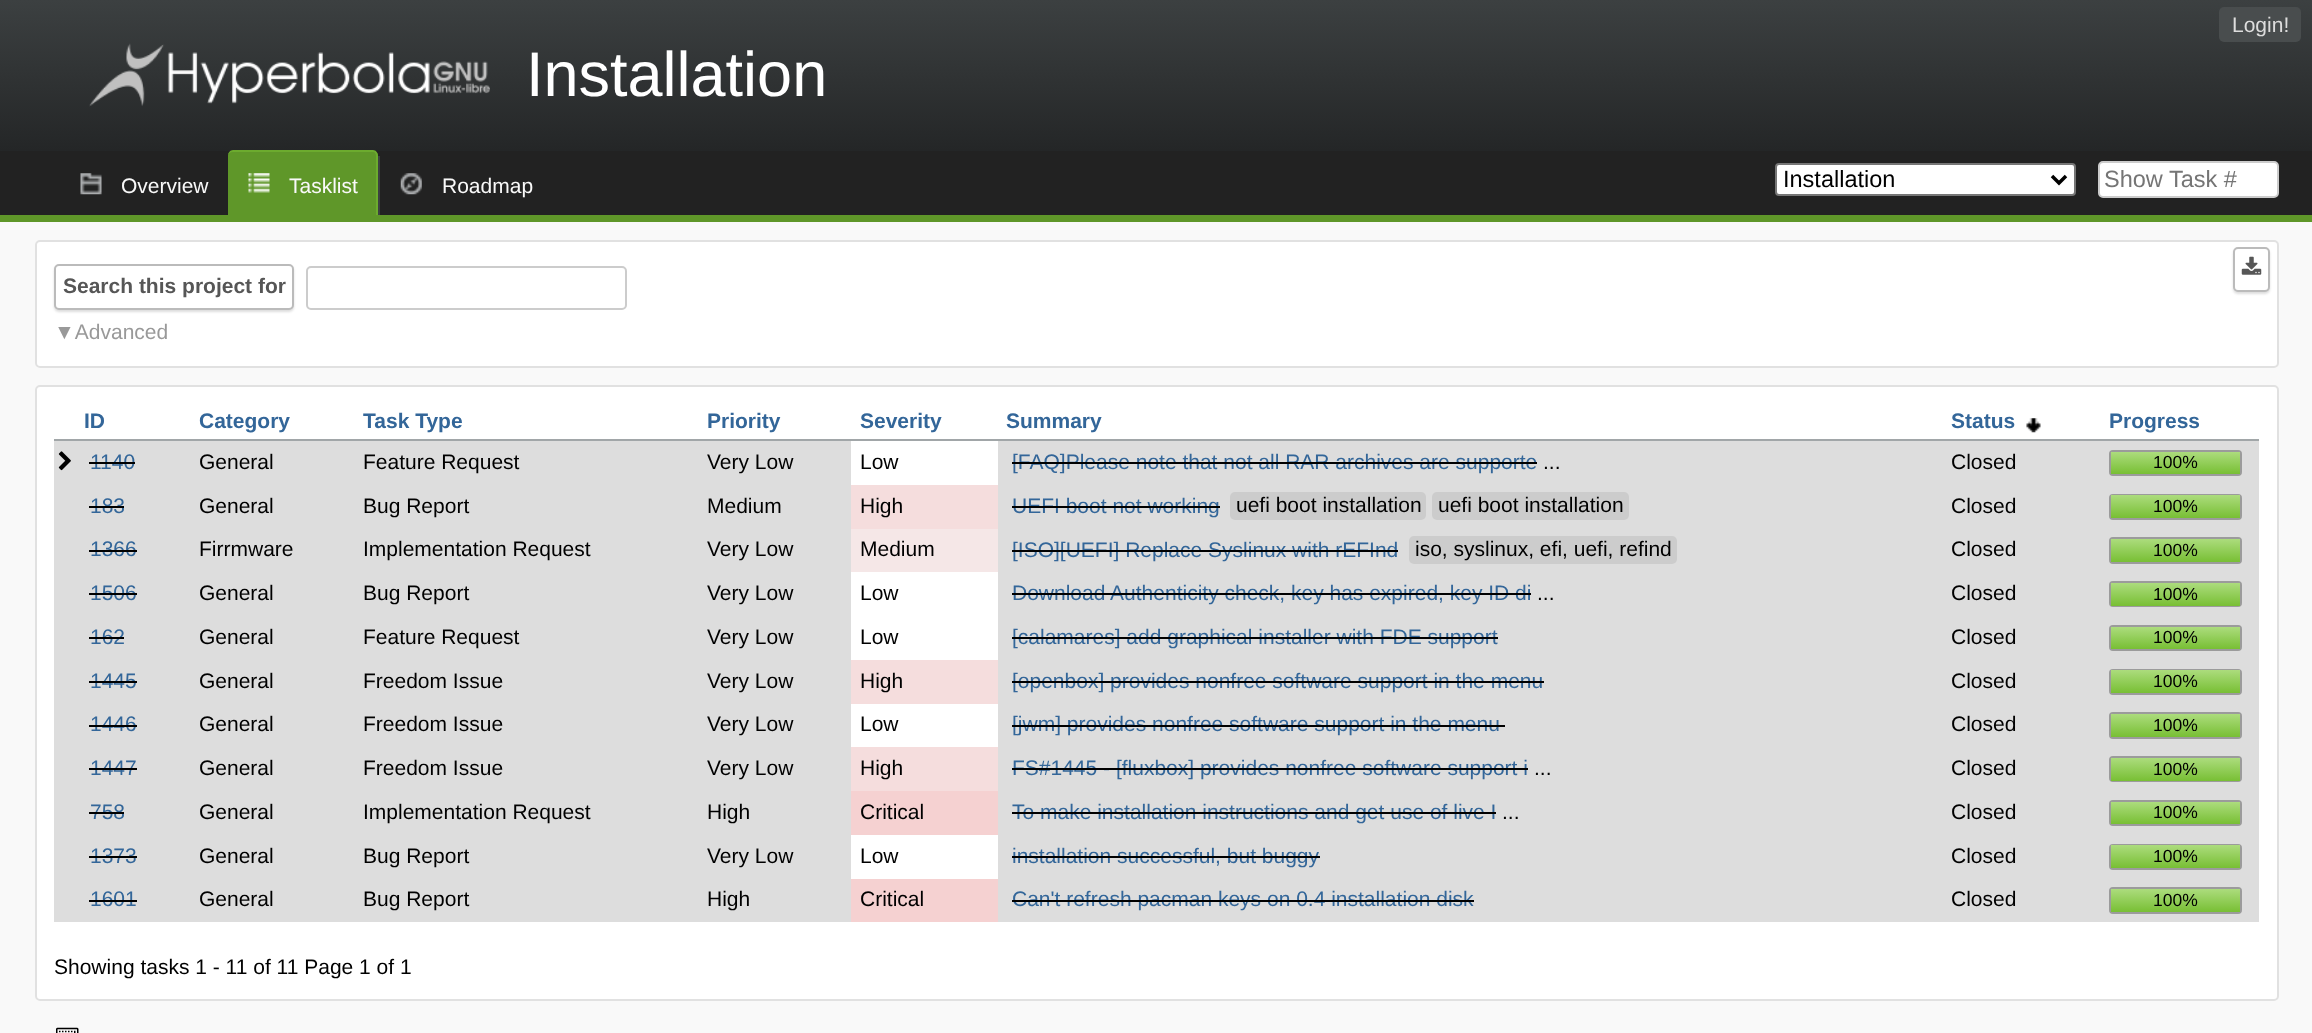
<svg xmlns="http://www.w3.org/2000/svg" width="2312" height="1033">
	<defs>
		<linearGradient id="g1" gradientUnits="userSpaceOnUse" x1="1157" y1="0" x2="1157" y2="151"><stop offset="0" stop-color="#3C4041" /><stop offset="1" stop-color="#242627" /></linearGradient>
		<linearGradient id="g2" gradientUnits="userSpaceOnUse" x1="2175" y1="452" x2="2175" y2="474"><stop offset="0" stop-color="#ACDC7D" /><stop offset="1" stop-color="#78BF34" /></linearGradient>
		<linearGradient id="g3" gradientUnits="userSpaceOnUse" x1="2175" y1="495" x2="2175" y2="518"><stop offset="0" stop-color="#ACDC7D" /><stop offset="1" stop-color="#78BF34" /></linearGradient>
		<linearGradient id="g4" gradientUnits="userSpaceOnUse" x1="2175" y1="539" x2="2175" y2="562"><stop offset="0" stop-color="#ACDC7D" /><stop offset="1" stop-color="#78BF34" /></linearGradient>
		<linearGradient id="g5" gradientUnits="userSpaceOnUse" x1="2175" y1="583" x2="2175" y2="606"><stop offset="0" stop-color="#ACDC7D" /><stop offset="1" stop-color="#78BF34" /></linearGradient>
		<linearGradient id="g6" gradientUnits="userSpaceOnUse" x1="2175" y1="627" x2="2175" y2="649"><stop offset="0" stop-color="#ACDC7D" /><stop offset="1" stop-color="#78BF34" /></linearGradient>
		<linearGradient id="g7" gradientUnits="userSpaceOnUse" x1="2175" y1="670" x2="2175" y2="693"><stop offset="0" stop-color="#ACDC7D" /><stop offset="1" stop-color="#78BF34" /></linearGradient>
		<linearGradient id="g8" gradientUnits="userSpaceOnUse" x1="2175" y1="714" x2="2175" y2="737"><stop offset="0" stop-color="#ACDC7D" /><stop offset="1" stop-color="#78BF34" /></linearGradient>
		<linearGradient id="g9" gradientUnits="userSpaceOnUse" x1="2175" y1="758" x2="2175" y2="781"><stop offset="0" stop-color="#ACDC7D" /><stop offset="1" stop-color="#78BF34" /></linearGradient>
		<linearGradient id="g10" gradientUnits="userSpaceOnUse" x1="2175" y1="802" x2="2175" y2="824"><stop offset="0" stop-color="#ACDC7D" /><stop offset="1" stop-color="#78BF34" /></linearGradient>
		<linearGradient id="g11" gradientUnits="userSpaceOnUse" x1="2175" y1="845" x2="2175" y2="868"><stop offset="0" stop-color="#ACDC7D" /><stop offset="1" stop-color="#78BF34" /></linearGradient>
		<linearGradient id="g12" gradientUnits="userSpaceOnUse" x1="2175" y1="889" x2="2175" y2="912"><stop offset="0" stop-color="#ACDC7D" /><stop offset="1" stop-color="#78BF34" /></linearGradient>
	</defs>
	<rect width="100%" height="100%" fill="#F9F9F9" />
	<rect x="0" y="0" width="2312" height="151" fill="url(#g1)" />
	<rect x="2219" y="7" width="82" height="35" rx="5" fill="#494D4E" />
	<text x="2232" y="32" font-family="Liberation Sans" font-size="21" fill="#DDDDDD">Login!</text>
	<image x="89" y="43" width="401" height="64" href="assets/img1.png" />
	<text x="526" y="96" font-family="Liberation Sans" font-size="63" fill="#FFFFFF">Installation</text>
	<rect x="0" y="151" width="2312" height="64" fill="#222222" />
	<rect x="0" y="215" width="2312" height="7" fill="#5F9729" />
	<image x="80" y="173" width="22" height="22" href="assets/img2.png" />
	<text x="121" y="193" font-family="Liberation Sans" font-size="21" fill="#F9F9F9">Overview</text>
	<path d="M233 151H373C376 151 378 153 378 156V215H228V156C228 153 230 151 233 151Z" fill="#5F9729" />
	<image x="248" y="173" width="22" height="20" href="assets/img3.png" />
	<path d="M233 150H373C376 150 378 153 378 156V215H228V156C228 153 230 150 233 150ZM233 152H373C375 152 376 154 376 156V215H228V156C228 154 230 152 233 152Z" fill="#6CAB2E" fill-rule="evenodd" />
	<text x="289" y="193" font-family="Liberation Sans" font-size="21" fill="#F9F9F9">Tasklist</text>
	<image x="400" y="173" width="22" height="22" href="assets/img4.png" />
	<rect x="378" y="156" width="2" height="59" fill="#3C4041" />
	<text x="442" y="193" font-family="Liberation Sans" font-size="21" fill="#F9F9F9">Roadmap</text>
	<rect x="1776" y="164" width="299" height="31" rx="3" fill="#FFFFFF" stroke="#767676" stroke-width="2" />
	<path d="M2052 176L2059 183L2066 176" fill="none" stroke="#000000" stroke-width="3.5" />
	<text x="1783" y="187" font-family="Liberation Sans" font-size="23.5" fill="#000000">Installation</text>
	<rect x="2099" y="162" width="179" height="35" rx="4" fill="#FFFFFF" stroke="#CCCCCC" stroke-width="2" />
	<text x="2104" y="187" font-family="Liberation Sans" font-size="23.5" fill="#757575">Show Task #</text>
	<rect x="36" y="241" width="2242" height="126" rx="4" fill="#FFFFFF" stroke="#E1E1E1" stroke-width="2" />
	<rect x="54" y="266" width="240" height="46" rx="5" fill="#DDDDDD" filter="blur(1px)" />
	<rect x="55" y="265" width="238" height="44" rx="4" fill="#FFFFFF" stroke="#BBBBBB" stroke-width="2" />
	<text x="63" y="293" font-family="Liberation Sans" font-size="21" font-weight="700" fill="#565656">Search this project for</text>
	<rect x="307" y="267" width="319" height="42" rx="4" fill="none" stroke="#CCCCCC" stroke-width="2" />
	<rect x="2233" y="249" width="37" height="45" rx="5" fill="#DDDDDD" filter="blur(1px)" />
	<rect x="2234" y="248" width="35" height="43" rx="4" fill="#FFFFFF" stroke="#BBBBBB" stroke-width="2" />
	<image x="2241" y="256" width="21" height="19" href="assets/img5.png" />
	<text x="54" y="339" font-family="Liberation Sans" font-size="21" fill="#999999">▼Advanced</text>
	<rect x="36" y="386" width="2242" height="614" rx="4" fill="#FFFFFF" stroke="#E1E1E1" stroke-width="2" />
	<g font-family="Liberation Sans" font-size="21" font-weight="700" fill="#336699">
		<text x="84" y="428">ID</text>
		<text x="199" y="428">Category</text>
		<text x="363" y="428">Task Type</text>
		<text x="707" y="428">Priority</text>
		<text x="860" y="428">Severity</text>
		<text x="1006" y="428">Summary</text>
		<text x="1951" y="428">Status</text>
	</g>
	<image x="2026" y="418" width="15" height="15" href="assets/img6.png" />
	<text x="2109" y="428" font-family="Liberation Sans" font-size="21" font-weight="700" fill="#336699">Progress</text>
	<rect x="54" y="439" width="2205" height="2" fill="#A1A6A8" />
	<rect x="54" y="441" width="2205" height="481" fill="#DDDDDD" />
	<image x="58" y="451" width="13" height="20" href="assets/img7.png" />
	<text x="90" y="469" font-family="Liberation Sans" font-size="21" fill="#336699">1140</text>
	<rect x="89" y="462" width="46" height="2" fill="#000000" />
	<g font-family="Liberation Sans" font-size="21" fill="#000000">
		<text x="199" y="469">General</text>
		<text x="363" y="469">Feature Request</text>
		<text x="707" y="469">Very Low</text>
	</g>
	<rect x="851" y="441" width="147" height="44" fill="#FFFFFF" />
	<text x="860" y="469" font-family="Liberation Sans" font-size="21" fill="#000000">Low</text>
	<text x="1012" y="469" font-family="Liberation Sans" font-size="21" fill="#336699">[FAQ]Please note that not all RAR archives are supporte</text>
	<rect x="1012" y="462" width="525" height="2" fill="#000000" />
	<g font-family="Liberation Sans" font-size="21" fill="#000000">
		<text x="1543" y="469">...</text>
		<text x="1951" y="469">Closed</text>
	</g>
	<rect x="2110" y="451" width="131" height="24" rx="3" fill="none" stroke="#9B9B9B" stroke-width="2" />
	<rect x="2111" y="452" width="129" height="22" fill="url(#g2)" />
	<text x="2153" y="468" font-family="Liberation Sans" font-size="17.5" fill="#000000">100%</text>
	<text x="90" y="513" font-family="Liberation Sans" font-size="21" fill="#336699">183</text>
	<rect x="89" y="506" width="35" height="2" fill="#000000" />
	<g font-family="Liberation Sans" font-size="21" fill="#000000">
		<text x="199" y="513">General</text>
		<text x="363" y="513">Bug Report</text>
		<text x="707" y="513">Medium</text>
	</g>
	<rect x="851" y="485" width="147" height="44" fill="#F5DDDD" />
	<text x="860" y="513" font-family="Liberation Sans" font-size="21" fill="#000000">High</text>
	<text x="1012" y="513" font-family="Liberation Sans" font-size="21" fill="#336699">UEFI boot not working</text>
	<rect x="1012" y="506" width="208" height="2" fill="#000000" />
	<rect x="1230" y="492" width="196" height="28" rx="5" fill="#CCCCCC" />
	<text x="1236" y="512" font-family="Liberation Sans" font-size="21" fill="#000000">uefi boot installation</text>
	<rect x="1432" y="492" width="197" height="28" rx="5" fill="#CCCCCC" />
	<g font-family="Liberation Sans" font-size="21" fill="#000000">
		<text x="1438" y="512">uefi boot installation</text>
		<text x="1951" y="513">Closed</text>
	</g>
	<rect x="2110" y="495" width="131" height="24" rx="3" fill="none" stroke="#9B9B9B" stroke-width="2" />
	<rect x="2111" y="495" width="129" height="23" fill="url(#g3)" />
	<text x="2153" y="512" font-family="Liberation Sans" font-size="17.5" fill="#000000">100%</text>
	<text x="90" y="556" font-family="Liberation Sans" font-size="21" fill="#336699">1366</text>
	<rect x="89" y="550" width="48" height="2" fill="#000000" />
	<g font-family="Liberation Sans" font-size="21" fill="#000000">
		<text x="199" y="556">Firrmware</text>
		<text x="363" y="556">Implementation Request</text>
		<text x="707" y="556">Very Low</text>
	</g>
	<rect x="851" y="529" width="147" height="43" fill="#F5E7E7" />
	<text x="860" y="556" font-family="Liberation Sans" font-size="21" fill="#000000">Medium</text>
	<text x="1012" y="557" font-family="Liberation Sans" font-size="21" fill="#336699">[ISO][UEFI] Replace Syslinux with rEFInd</text>
	<rect x="1012" y="550" width="386" height="2" fill="#000000" />
	<rect x="1409" y="536" width="268" height="28" rx="5" fill="#CCCCCC" />
	<g font-family="Liberation Sans" font-size="21" fill="#000000">
		<text x="1415" y="556">iso, syslinux, efi, uefi, refind</text>
		<text x="1951" y="556">Closed</text>
	</g>
	<rect x="2110" y="538" width="131" height="25" rx="3" fill="none" stroke="#9B9B9B" stroke-width="2" />
	<rect x="2111" y="539" width="129" height="23" fill="url(#g4)" />
	<text x="2153" y="556" font-family="Liberation Sans" font-size="17.5" fill="#000000">100%</text>
	<text x="90" y="600" font-family="Liberation Sans" font-size="21" fill="#336699">1506</text>
	<rect x="89" y="593" width="48" height="2" fill="#000000" />
	<g font-family="Liberation Sans" font-size="21" fill="#000000">
		<text x="199" y="600">General</text>
		<text x="363" y="600">Bug Report</text>
		<text x="707" y="600">Very Low</text>
	</g>
	<rect x="851" y="572" width="147" height="88" fill="#FFFFFF" />
	<text x="860" y="600" font-family="Liberation Sans" font-size="21" fill="#000000">Low</text>
	<text x="1012" y="600" font-family="Liberation Sans" font-size="21" fill="#336699">Download Authenticity check, key has expired, key ID di</text>
	<rect x="1012" y="593" width="519" height="2" fill="#000000" />
	<g font-family="Liberation Sans" font-size="21" fill="#000000">
		<text x="1537" y="600">...</text>
		<text x="1951" y="600">Closed</text>
	</g>
	<rect x="2110" y="582" width="131" height="24" rx="3" fill="none" stroke="#9B9B9B" stroke-width="2" />
	<rect x="2111" y="583" width="129" height="23" fill="url(#g5)" />
	<text x="2153" y="600" font-family="Liberation Sans" font-size="17.5" fill="#000000">100%</text>
	<text x="90" y="644" font-family="Liberation Sans" font-size="21" fill="#336699">162</text>
	<rect x="89" y="637" width="35" height="2" fill="#000000" />
	<g font-family="Liberation Sans" font-size="21" fill="#000000">
		<text x="199" y="644">General</text>
		<text x="363" y="644">Feature Request</text>
		<text x="707" y="644">Very Low</text>
		<text x="860" y="644">Low</text>
	</g>
	<text x="1012" y="644" font-family="Liberation Sans" font-size="21" fill="#336699">[calamares] add graphical installer with FDE support</text>
	<rect x="1012" y="637" width="486" height="2" fill="#000000" />
	<text x="1951" y="644" font-family="Liberation Sans" font-size="21" fill="#000000">Closed</text>
	<rect x="2110" y="626" width="131" height="24" rx="3" fill="none" stroke="#9B9B9B" stroke-width="2" />
	<rect x="2111" y="627" width="129" height="22" fill="url(#g6)" />
	<text x="2153" y="643" font-family="Liberation Sans" font-size="17.5" fill="#000000">100%</text>
	<text x="90" y="688" font-family="Liberation Sans" font-size="21" fill="#336699">1445</text>
	<rect x="89" y="681" width="48" height="2" fill="#000000" />
	<g font-family="Liberation Sans" font-size="21" fill="#000000">
		<text x="199" y="688">General</text>
		<text x="363" y="688">Freedom Issue</text>
		<text x="707" y="688">Very Low</text>
	</g>
	<rect x="851" y="660" width="147" height="44" fill="#F5DDDD" />
	<text x="860" y="688" font-family="Liberation Sans" font-size="21" fill="#000000">High</text>
	<text x="1012" y="688" font-family="Liberation Sans" font-size="21" fill="#336699">[openbox] provides nonfree software support in the menu</text>
	<rect x="1012" y="681" width="532" height="2" fill="#000000" />
	<text x="1951" y="688" font-family="Liberation Sans" font-size="21" fill="#000000">Closed</text>
	<rect x="2110" y="670" width="131" height="24" rx="3" fill="none" stroke="#9B9B9B" stroke-width="2" />
	<rect x="2111" y="670" width="129" height="23" fill="url(#g7)" />
	<text x="2153" y="687" font-family="Liberation Sans" font-size="17.5" fill="#000000">100%</text>
	<text x="90" y="731" font-family="Liberation Sans" font-size="21" fill="#336699">1446</text>
	<rect x="89" y="725" width="48" height="2" fill="#000000" />
	<g font-family="Liberation Sans" font-size="21" fill="#000000">
		<text x="199" y="731">General</text>
		<text x="363" y="731">Freedom Issue</text>
		<text x="707" y="731">Very Low</text>
	</g>
	<rect x="851" y="704" width="147" height="43" fill="#FFFFFF" />
	<text x="860" y="731" font-family="Liberation Sans" font-size="21" fill="#000000">Low</text>
	<text x="1012" y="731" font-family="Liberation Sans" font-size="21" fill="#336699">[jwm] provides nonfree software support in the menu</text>
	<rect x="1012" y="725" width="493" height="2" fill="#000000" />
	<text x="1951" y="731" font-family="Liberation Sans" font-size="21" fill="#000000">Closed</text>
	<rect x="2110" y="713" width="131" height="25" rx="3" fill="none" stroke="#9B9B9B" stroke-width="2" />
	<rect x="2111" y="714" width="129" height="23" fill="url(#g8)" />
	<text x="2153" y="731" font-family="Liberation Sans" font-size="17.5" fill="#000000">100%</text>
	<text x="90" y="775" font-family="Liberation Sans" font-size="21" fill="#336699">1447</text>
	<rect x="89" y="768" width="48" height="2" fill="#000000" />
	<g font-family="Liberation Sans" font-size="21" fill="#000000">
		<text x="199" y="775">General</text>
		<text x="363" y="775">Freedom Issue</text>
		<text x="707" y="775">Very Low</text>
	</g>
	<rect x="851" y="747" width="147" height="44" fill="#F5DDDD" />
	<text x="860" y="775" font-family="Liberation Sans" font-size="21" fill="#000000">High</text>
	<text x="1012" y="775" font-family="Liberation Sans" font-size="21" fill="#336699">FS#1445 - [fluxbox] provides nonfree software support i</text>
	<rect x="1012" y="768" width="516" height="2" fill="#000000" />
	<g font-family="Liberation Sans" font-size="21" fill="#000000">
		<text x="1534" y="775">...</text>
		<text x="1951" y="775">Closed</text>
	</g>
	<rect x="2110" y="757" width="131" height="24" rx="3" fill="none" stroke="#9B9B9B" stroke-width="2" />
	<rect x="2111" y="758" width="129" height="23" fill="url(#g9)" />
	<text x="2153" y="775" font-family="Liberation Sans" font-size="17.5" fill="#000000">100%</text>
	<text x="90" y="819" font-family="Liberation Sans" font-size="21" fill="#336699">758</text>
	<rect x="89" y="812" width="35" height="2" fill="#000000" />
	<g font-family="Liberation Sans" font-size="21" fill="#000000">
		<text x="199" y="819">General</text>
		<text x="363" y="819">Implementation Request</text>
		<text x="707" y="819">High</text>
	</g>
	<rect x="851" y="791" width="147" height="44" fill="#F5D1D1" />
	<text x="860" y="819" font-family="Liberation Sans" font-size="21" fill="#000000">Critical</text>
	<text x="1012" y="819" font-family="Liberation Sans" font-size="21" fill="#336699">To make installation instructions and get use of live I</text>
	<rect x="1012" y="812" width="484" height="2" fill="#000000" />
	<g font-family="Liberation Sans" font-size="21" fill="#000000">
		<text x="1502" y="819">...</text>
		<text x="1951" y="819">Closed</text>
	</g>
	<rect x="2110" y="801" width="131" height="24" rx="3" fill="none" stroke="#9B9B9B" stroke-width="2" />
	<rect x="2111" y="802" width="129" height="22" fill="url(#g10)" />
	<text x="2153" y="818" font-family="Liberation Sans" font-size="17.5" fill="#000000">100%</text>
	<text x="90" y="863" font-family="Liberation Sans" font-size="21" fill="#336699">1373</text>
	<rect x="89" y="856" width="48" height="2" fill="#000000" />
	<g font-family="Liberation Sans" font-size="21" fill="#000000">
		<text x="199" y="863">General</text>
		<text x="363" y="863">Bug Report</text>
		<text x="707" y="863">Very Low</text>
	</g>
	<rect x="851" y="835" width="147" height="44" fill="#FFFFFF" />
	<text x="860" y="863" font-family="Liberation Sans" font-size="21" fill="#000000">Low</text>
	<text x="1012" y="863" font-family="Liberation Sans" font-size="21" fill="#336699">installation successful, but buggy</text>
	<rect x="1012" y="856" width="308" height="2" fill="#000000" />
	<text x="1951" y="863" font-family="Liberation Sans" font-size="21" fill="#000000">Closed</text>
	<rect x="2110" y="845" width="131" height="24" rx="3" fill="none" stroke="#9B9B9B" stroke-width="2" />
	<rect x="2111" y="845" width="129" height="23" fill="url(#g11)" />
	<text x="2153" y="862" font-family="Liberation Sans" font-size="17.5" fill="#000000">100%</text>
	<text x="90" y="906" font-family="Liberation Sans" font-size="21" fill="#336699">1601</text>
	<rect x="89" y="900" width="48" height="2" fill="#000000" />
	<g font-family="Liberation Sans" font-size="21" fill="#000000">
		<text x="199" y="906">General</text>
		<text x="363" y="906">Bug Report</text>
		<text x="707" y="906">High</text>
	</g>
	<rect x="851" y="879" width="147" height="43" fill="#F5D1D1" />
	<text x="860" y="906" font-family="Liberation Sans" font-size="21" fill="#000000">Critical</text>
	<text x="1012" y="906" font-family="Liberation Sans" font-size="21" fill="#336699">Can't refresh pacman keys on 0.4 installation disk</text>
	<rect x="1012" y="900" width="462" height="2" fill="#000000" />
	<text x="1951" y="906" font-family="Liberation Sans" font-size="21" fill="#000000">Closed</text>
	<rect x="2110" y="888" width="131" height="25" rx="3" fill="none" stroke="#9B9B9B" stroke-width="2" />
	<rect x="2111" y="889" width="129" height="23" fill="url(#g12)" />
	<text x="2153" y="906" font-family="Liberation Sans" font-size="17.5" fill="#000000">100%</text>
	<text x="54" y="974" font-family="Liberation Sans" font-size="21" fill="#000000">Showing tasks 1 - 11 of 11 Page 1 of 1</text>
	<image x="56" y="1027" width="23" height="6" href="assets/img8.png" />
</svg>
